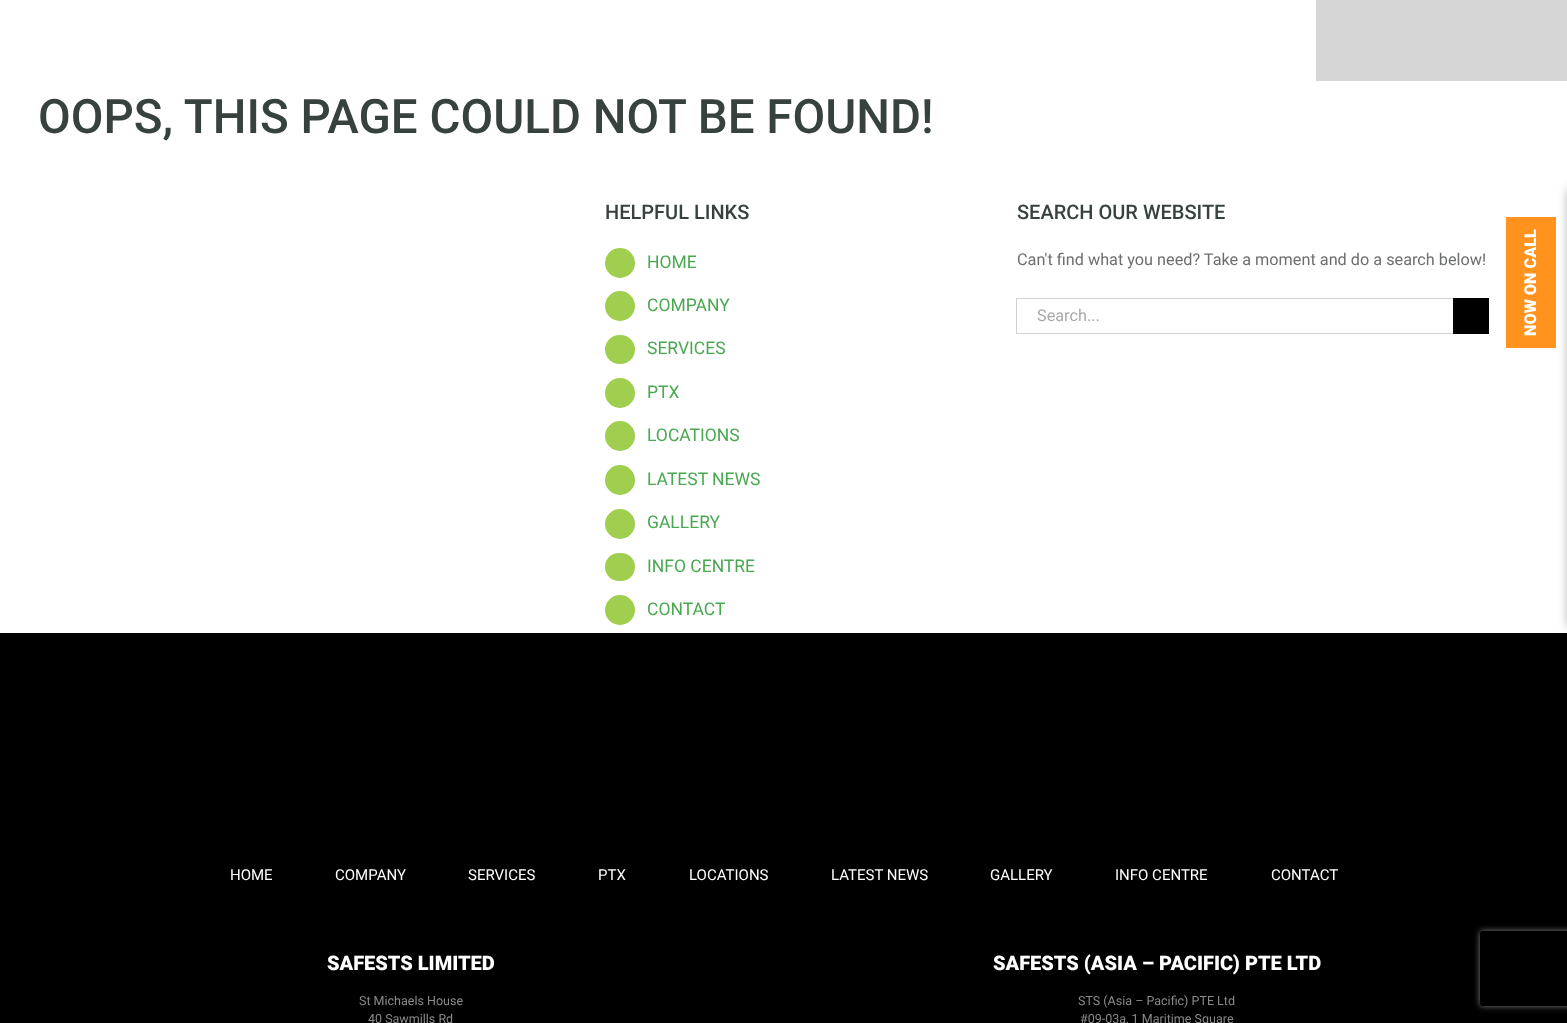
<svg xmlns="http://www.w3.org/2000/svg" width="1567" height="1023">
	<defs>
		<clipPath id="clip1"><path d="M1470 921H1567V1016H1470ZM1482.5 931H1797.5C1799 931 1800 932 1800 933.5V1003.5C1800 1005 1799 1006 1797.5 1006H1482.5C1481 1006 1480 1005 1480 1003.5V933.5C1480 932 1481 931 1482.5 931Z" clip-rule="evenodd" /></clipPath>
	</defs>
	<rect width="100%" height="100%" fill="#D7D6D6" />
	<rect x="0" y="81" width="1567" height="552" fill="#FFFFFF" />
	<rect x="0" y="0" width="1316" height="81" fill="#FFFFFF" />
	<text x="38" y="133" font-family="Roboto" font-size="47.5" font-weight="500" fill="#37423E">OOPS, THIS PAGE COULD NOT BE FOUND!</text>
	<text x="605" y="219" font-family="Roboto" font-size="20" font-weight="500" fill="#37423E">HELPFUL LINKS</text>
	<circle cx="620" cy="263" r="15" fill="#A0CE4E" />
	<text x="647" y="268" font-family="Roboto" font-size="17.5" fill="#4AA851">HOME</text>
	<circle cx="620" cy="306" r="15" fill="#A0CE4E" />
	<text x="647" y="311" font-family="Roboto" font-size="17.5" fill="#4AA851">COMPANY</text>
	<rect x="605" y="335" width="30" height="29" rx="14.5" fill="#A0CE4E" />
	<text x="647" y="354" font-family="Roboto" font-size="17.5" fill="#4AA851">SERVICES</text>
	<circle cx="620" cy="393" r="15" fill="#A0CE4E" />
	<text x="647" y="398" font-family="Roboto" font-size="17.5" fill="#4AA851">PTX</text>
	<circle cx="620" cy="436" r="15" fill="#A0CE4E" />
	<text x="647" y="441" font-family="Roboto" font-size="17.5" fill="#4AA851">LOCATIONS</text>
	<circle cx="620" cy="480" r="15" fill="#A0CE4E" />
	<text x="647" y="485" font-family="Roboto" font-size="17.5" fill="#4AA851">LATEST NEWS</text>
	<circle cx="620" cy="524" r="15" fill="#A0CE4E" />
	<text x="647" y="528" font-family="Roboto" font-size="17.5" fill="#4AA851">GALLERY</text>
	<rect x="605" y="553" width="30" height="28" rx="14" fill="#A0CE4E" />
	<text x="647" y="572" font-family="Roboto" font-size="17.5" fill="#4AA851">INFO CENTRE</text>
	<circle cx="620" cy="610" r="15" fill="#A0CE4E" />
	<text x="647" y="615" font-family="Roboto" font-size="17.5" fill="#4AA851">CONTACT</text>
	<text x="1017" y="219" font-family="Roboto" font-size="20" font-weight="500" fill="#37423E">SEARCH OUR WEBSITE</text>
	<text x="1017" y="265" font-family="Roboto" font-size="16.25" fill="#6D6E70">Can't find what you need? Take a moment and do a search below!</text>
	<rect x="1016" y="298" width="437" height="1" fill="#D2D2D2" />
	<rect x="1016" y="333" width="437" height="1" fill="#D2D2D2" />
	<rect x="1016" y="298" width="1" height="36" fill="#D2D2D2" />
	<text x="1037" y="321" font-family="Roboto" font-size="16.25" fill="#AAA9A9">Search...</text>
	<rect x="1453" y="298" width="36" height="36" fill="#000000" />
	<rect x="0" y="633" width="1567" height="390" fill="#000000" />
	<rect x="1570" y="190" width="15" height="436" fill="#000000" fill-opacity="0.48" filter="blur(6px)" />
	<rect x="1506" y="217" width="50" height="131" fill="#FF931E" />
	<text x="1536" y="336" transform="rotate(-90 1536 336)" font-family="Roboto" font-size="16.25" font-weight="900" fill="#FFFFFF">NOW ON CALL</text>
	<g font-family="Roboto" font-size="15" fill="#FFFFFF">
		<text x="230" y="880">HOME</text>
		<text x="335" y="880">COMPANY</text>
		<text x="468" y="880">SERVICES</text>
		<text x="598" y="880">PTX</text>
		<text x="689" y="880">LOCATIONS</text>
		<text x="831" y="880">LATEST NEWS</text>
		<text x="990" y="880">GALLERY</text>
		<text x="1115" y="880">INFO CENTRE</text>
		<text x="1271" y="880">CONTACT</text>
	</g>
	<text x="327" y="970" font-family="Roboto" font-size="20" font-weight="900" fill="#FFFFFF">SAFESTS LIMITED</text>
	<g font-family="Roboto" font-size="12.5" fill="#8C8989">
		<text x="359" y="1005">St Michaels House</text>
		<text x="368" y="1023">40 Sawmills Rd</text>
	</g>
	<text x="993" y="970" font-family="Roboto" font-size="20" font-weight="900" fill="#FFFFFF">SAFESTS (ASIA – PACIFIC) PTE LTD</text>
	<g font-family="Roboto" font-size="12.5" fill="#8C8989">
		<text x="1078" y="1005">STS (Asia – Pacific) PTE Ltd</text>
		<text x="1080" y="1023">#09-03a, 1 Maritime Square</text>
	</g>
	<g clip-path="url(#clip1)">
		<rect x="1480" y="931" width="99" height="75" rx="2.5" fill="#808080" filter="blur(3px)" />
	</g>
</svg>
